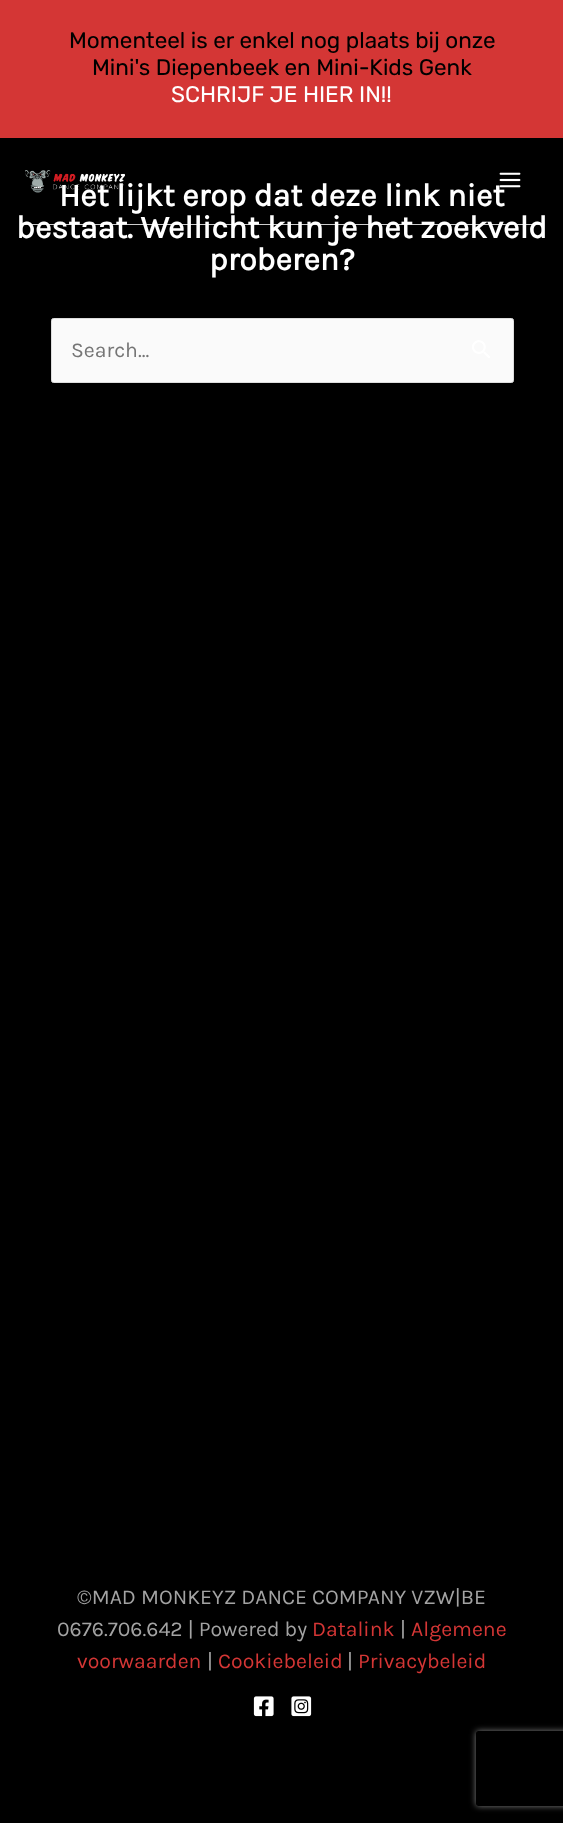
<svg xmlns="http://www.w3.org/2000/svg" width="563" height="1823">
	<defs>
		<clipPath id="clip1"><path d="M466 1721H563V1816H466ZM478.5 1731H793.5C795 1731 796 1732 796 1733.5V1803.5C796 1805 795 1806 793.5 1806H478.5C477 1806 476 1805 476 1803.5V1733.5C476 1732 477 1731 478.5 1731Z" clip-rule="evenodd" /></clipPath>
	</defs>
	<rect width="100%" height="100%" fill="#000000" />
	<rect x="0" y="0" width="563" height="138" fill="#D43635" />
	<g font-family="Rubik" font-size="22.5" fill="#000000">
		<text x="69" y="48">Momenteel is er enkel nog plaats bij onze</text>
		<text x="92" y="75">Mini's Diepenbeek en Mini-Kids Genk</text>
	</g>
	<text x="171" y="102" font-family="Rubik" font-size="22.5" fill="#FFFFFF">SCHRIJF JE HIER IN!!</text>
	<text x="16" y="238" font-family="Karla" font-size="31.9" font-weight="700" fill="#FFFFFF">bestaat. Wellicht kun je het zoekveld</text>
	<rect x="25" y="224" width="514" height="1" fill="#FFFFFF" fill-opacity="0.8" />
	<text x="59" y="206" font-family="Karla" font-size="31.9" font-weight="700" fill="#FFFFFF">Het lijkt erop dat deze link niet</text>
	<image x="25" y="170" width="100" height="23" href="assets/img1.png" />
	<image x="499" y="172" width="22" height="16" href="assets/img2.png" />
	<text x="209" y="270" font-family="Karla" font-size="31.9" font-weight="700" fill="#FFFFFF">proberen?</text>
	<rect x="51.5" y="318.5" width="462" height="64" rx="2" fill="#FAFAFA" stroke="#DDDDDD" />
	<text x="71" y="357" font-family="Karla" font-size="21.25" fill="#757575">Search...</text>
	<image x="472" y="340" width="18" height="18" href="assets/img3.png" />
	<g font-family="Karla" font-size="21.25" fill="#A3A3A3">
		<text x="77" y="1604">©MAD MONKEYZ DANCE COMPANY VZW|BE</text>
		<text x="57" y="1636">0676.706.642 | Powered by</text>
	</g>
	<text x="312" y="1636" font-family="Karla" font-size="21.25" fill="#D43635">Datalink</text>
	<text x="400" y="1636" font-family="Karla" font-size="21.25" fill="#A3A3A3">|</text>
	<g font-family="Karla" font-size="21.25" fill="#D43635">
		<text x="411" y="1636">Algemene</text>
		<text x="77" y="1668">voorwaarden</text>
	</g>
	<text x="207" y="1668" font-family="Karla" font-size="21.25" fill="#A3A3A3">|</text>
	<text x="218" y="1668" font-family="Karla" font-size="21.25" fill="#D43635">Cookiebeleid</text>
	<text x="347" y="1668" font-family="Karla" font-size="21.25" fill="#A3A3A3">|</text>
	<text x="358" y="1668" font-family="Karla" font-size="21.25" fill="#D43635">Privacybeleid</text>
	<image x="253" y="1696" width="21" height="21" href="assets/img4.png" />
	<image x="291" y="1696" width="21" height="21" href="assets/img5.png" />
	<g clip-path="url(#clip1)">
		<rect x="476" y="1731" width="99" height="75" rx="2.5" fill="#808080" filter="blur(3px)" />
	</g>
</svg>
